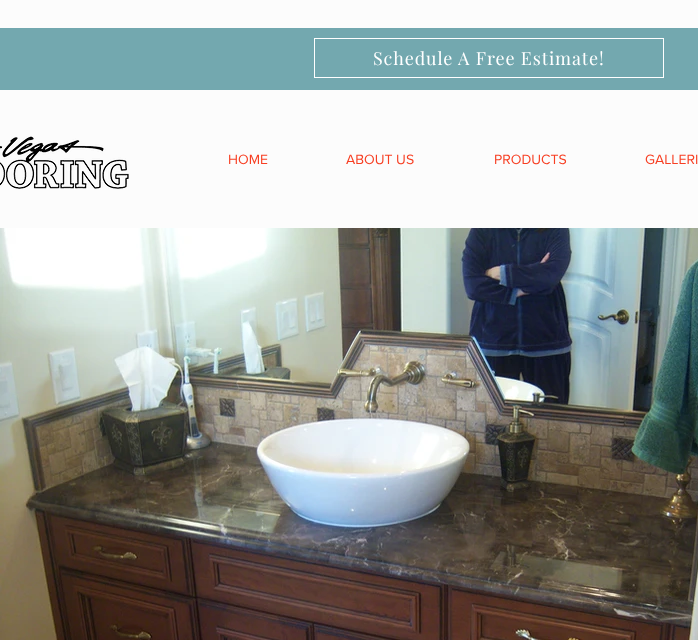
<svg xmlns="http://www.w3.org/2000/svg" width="698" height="640">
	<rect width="100%" height="100%" fill="#FCFCFC" />
	<rect x="0" y="28" width="698" height="62" fill="#73A8AF" />
	<rect x="314.5" y="38.5" width="349" height="39" fill="none" stroke="#FFFFFF" />
	<text x="373" y="65" font-family="Playfair Display" font-size="18" letter-spacing="0.9" fill="#FFFFFF">Schedule A Free Estimate!</text>
	<image x="0" y="136" width="129" height="53" href="assets/img1.png" />
	<g font-family="'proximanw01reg'" font-size="14" fill="#F73F23">
		<text x="228" y="164">HOME</text>
		<text x="346" y="164">ABOUT US</text>
		<text x="494" y="164">PRODUCTS</text>
		<text x="645" y="164">GALLERI</text>
	</g>
	<image x="0" y="228" width="698" height="412" href="assets/img2.png" />
</svg>
